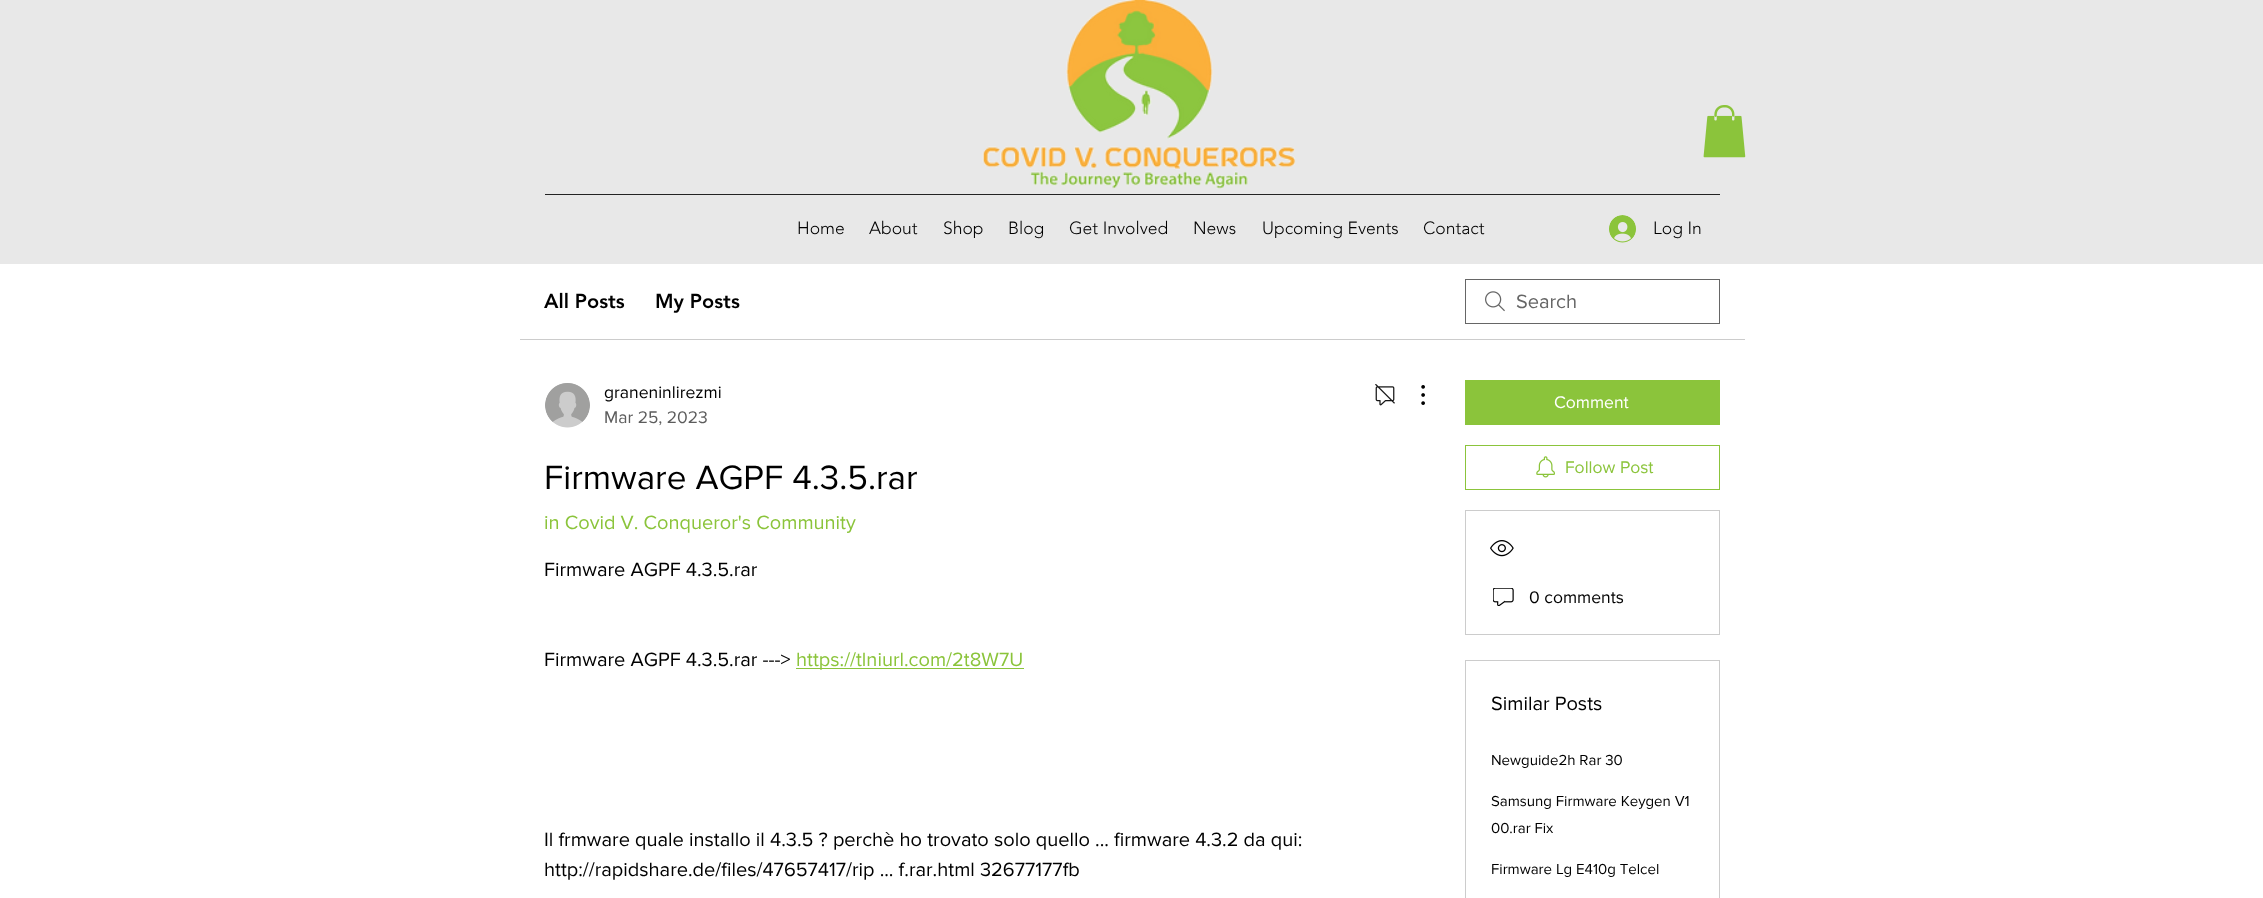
<svg xmlns="http://www.w3.org/2000/svg" width="2263" height="898">
	<rect width="100%" height="100%" fill="#FFFFFF" />
	<rect x="0" y="0" width="2263" height="264" fill="#E8E8E8" />
	<image x="982" y="0" width="314" height="189" href="assets/img1.png" />
	<image x="1703" y="105" width="43" height="53" href="assets/img2.png" />
	<rect x="545" y="194" width="1175" height="1" fill="#232323" />
	<g font-family="'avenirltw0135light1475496'" font-size="17.5" font-weight="300" fill="#000000">
		<text x="797" y="234">Home</text>
		<text x="869" y="234">About</text>
		<text x="943" y="234">Shop</text>
		<text x="1008" y="234">Blog</text>
		<text x="1069" y="234">Get Involved</text>
		<text x="1193" y="234">News</text>
		<text x="1262" y="234">Upcoming Events</text>
		<text x="1423" y="234">Contact</text>
	</g>
	<image x="1609" y="215" width="27" height="28" href="assets/img3.png" />
	<text x="1653" y="234" font-family="'avenirltw0135light1475496'" font-size="17.5" font-weight="300" fill="#000000">Log In</text>
	<rect x="520" y="339" width="1225" height="1" fill="#CCCCCC" />
	<g font-family="'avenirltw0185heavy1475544'" font-size="20" font-weight="900" fill="#000000">
		<text x="544" y="308">All Posts</text>
		<text x="655" y="308">My Posts</text>
	</g>
	<image x="1485" y="291" width="20" height="21" href="assets/img4.png" />
	<rect x="1465.5" y="279.5" width="254" height="44" fill="none" stroke="#666666" />
	<text x="1516" y="308" font-family="'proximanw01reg'" font-size="20" fill="#666666">Search</text>
	<image x="545" y="383" width="45" height="45" href="assets/img5.png" />
	<text x="604" y="398" font-family="'proximanw01reg'" font-size="17.5" fill="#000000">graneninlirezmi</text>
	<text x="604" y="423" font-family="'proximanw01reg'" font-size="17.5" fill="#5C5C5C">Mar 25, 2023</text>
	<image x="1375" y="384" width="20" height="22" href="assets/img6.png" />
	<image x="1421" y="385" width="4" height="20" href="assets/img7.png" />
	<text x="544" y="489" font-family="'proximanw01reg'" font-size="35" fill="#000000">Firmware AGPF 4.3.5.rar</text>
	<text x="544" y="529" font-family="'proximanw01reg'" font-size="20" fill="#8BC43B">in Covid V. Conqueror's Community</text>
	<g font-family="'proximanw01reg'" font-size="20" fill="#000000">
		<text x="544" y="576">Firmware AGPF 4.3.5.rar</text>
		<text x="544" y="666">Firmware AGPF 4.3.5.rar ---&gt;</text>
	</g>
	<rect x="796" y="668" width="228" height="1" fill="#8BC43B" />
	<text x="796" y="666" font-family="'proximanw01reg'" font-size="20" fill="#8BC43B">https://tlniurl.com/2t8W7U</text>
	<g font-family="'proximanw01reg'" font-size="20" fill="#000000">
		<text x="544" y="846">Il frmware quale installo il 4.3.5 ? perchè ho trovato solo quello ... firmware 4.3.2 da qui:</text>
		<text x="544" y="876">http://rapidshare.de/files/47657417/rip ... f.rar.html 32677177fb</text>
	</g>
	<rect x="1465" y="380" width="255" height="45" fill="#8BC43B" />
	<text x="1554" y="408" font-family="'proximanw01reg'" font-size="17.5" fill="#FFFFFF">Comment</text>
	<rect x="1465.5" y="445.5" width="254" height="44" fill="none" stroke="#8BC43B" />
	<image x="1536" y="456" width="19" height="22" href="assets/img8.png" />
	<text x="1565" y="473" font-family="'proximanw01reg'" font-size="17.5" fill="#8BC43B">Follow Post</text>
	<rect x="1465.5" y="510.5" width="254" height="124" fill="none" stroke="#CCCCCC" />
	<image x="1490" y="540" width="24" height="17" href="assets/img9.png" />
	<image x="1493" y="588" width="21" height="18" href="assets/img10.png" />
	<text x="1529" y="603" font-family="'proximanw01reg'" font-size="17.5" fill="#000000">0 comments</text>
	<rect x="1465.5" y="660.5" width="254" height="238" fill="none" stroke="#CCCCCC" />
	<text x="1491" y="710" font-family="'proximanw01reg'" font-size="20" fill="#000000">Similar Posts</text>
	<g font-family="'proximanw01reg'" font-size="15" fill="#000000">
		<text x="1491" y="765">Newguide2h Rar 30</text>
		<text x="1491" y="806">Samsung Firmware Keygen V1</text>
		<text x="1491" y="833">00.rar Fix</text>
		<text x="1491" y="874">Firmware Lg E410g Telcel</text>
	</g>
</svg>
